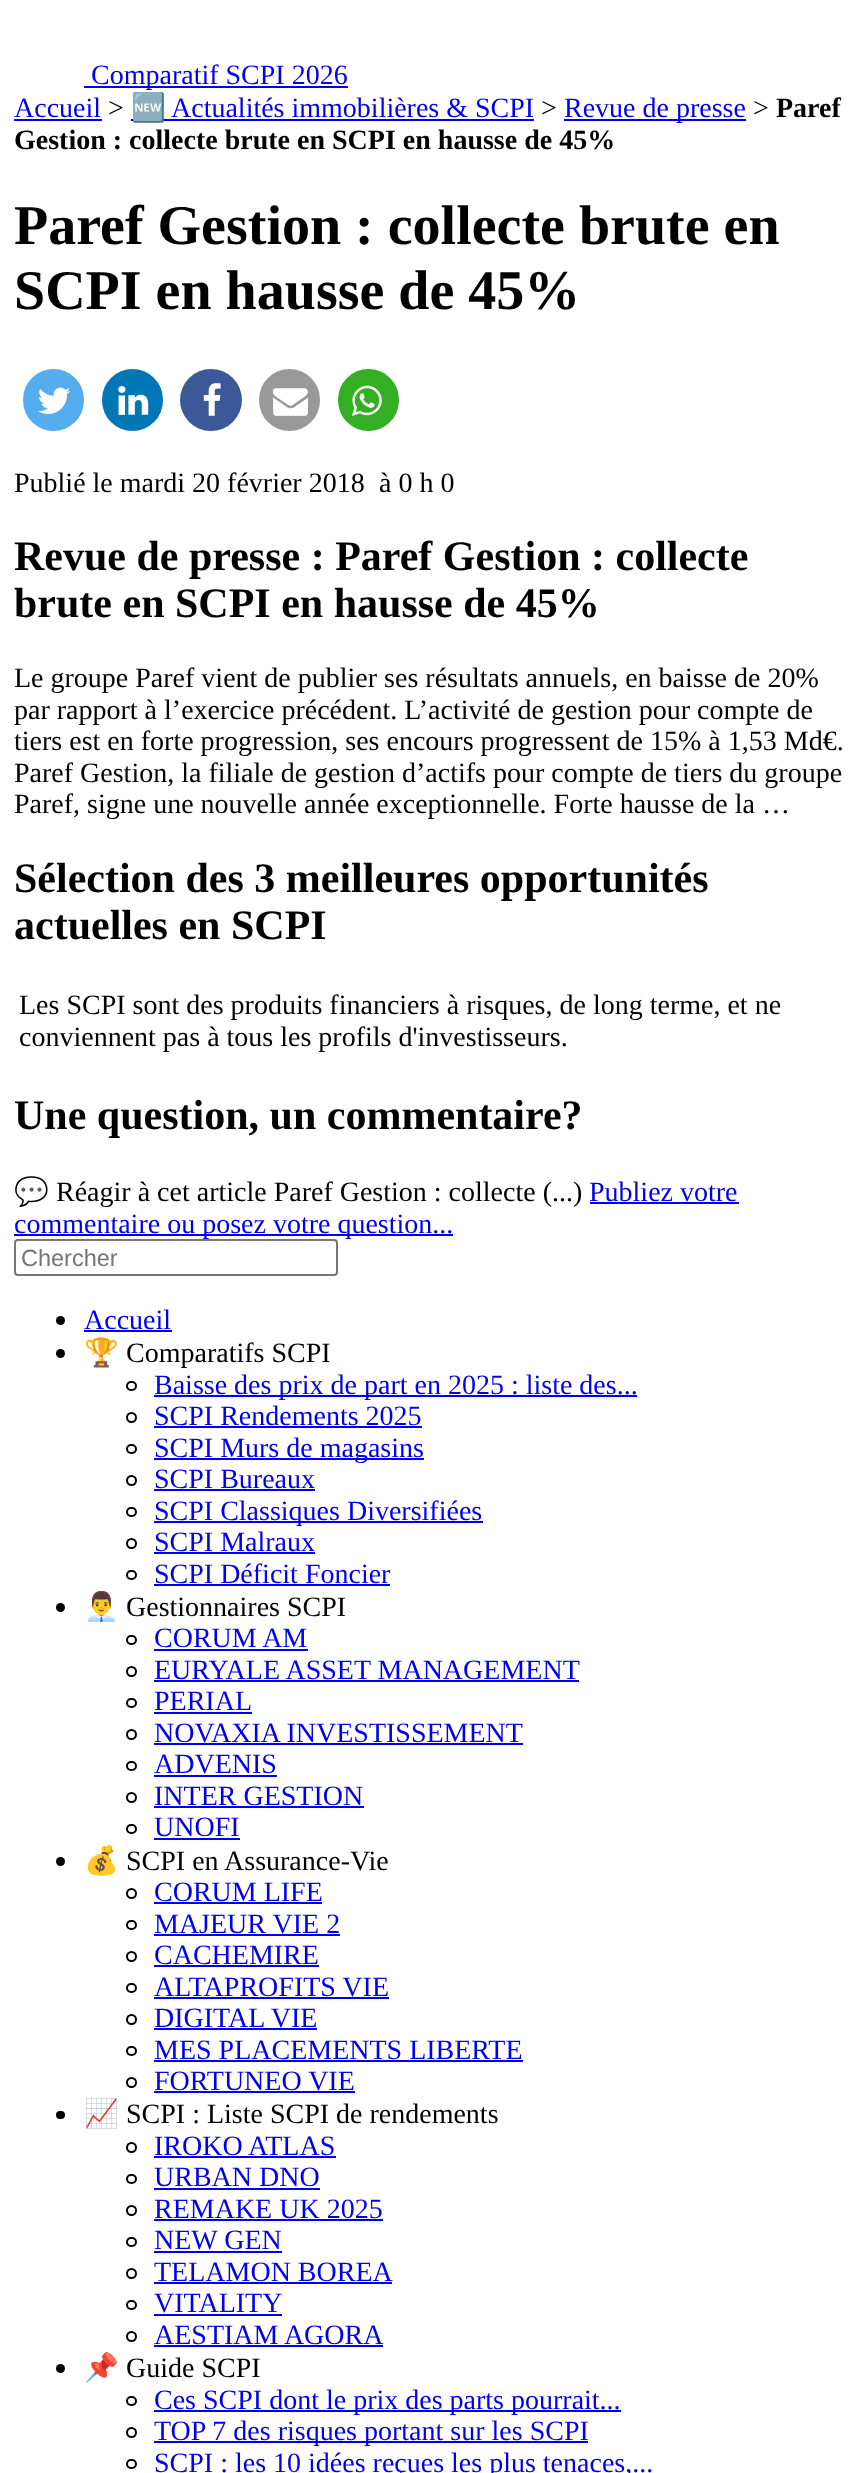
<svg xmlns="http://www.w3.org/2000/svg" width="868" height="2473">
	<rect width="100%" height="100%" fill="#FFFFFF" />
	<rect x="84" y="86" width="264" height="2" fill="#0000EE" />
	<g font-family="Liberation Serif" font-size="28" fill="#0000EE">
		<text x="91" y="84">Comparatif SCPI 2026</text>
		<text x="14" y="117">Accueil</text>
	</g>
	<rect x="14" y="119" width="88" height="2" fill="#0000EE" />
	<text x="108" y="117" font-family="Liberation Serif" font-size="28" fill="#000000">&gt;</text>
	<rect x="131" y="119" width="403" height="2" fill="#0000EE" />
	<text x="131" y="117" font-family="Noto Color Emoji" font-size="28" fill="#0000EE">🆕</text>
	<text x="171" y="117" font-family="Liberation Serif" font-size="28" fill="#0000EE">Actualités immobilières &amp; SCPI</text>
	<text x="541" y="117" font-family="Liberation Serif" font-size="28" fill="#000000">&gt;</text>
	<rect x="564" y="119" width="182" height="2" fill="#0000EE" />
	<text x="564" y="117" font-family="Liberation Serif" font-size="28" fill="#0000EE">Revue de presse</text>
	<text x="753" y="117" font-family="Liberation Serif" font-size="28" fill="#000000">&gt;</text>
	<g font-family="Liberation Serif" font-size="28" font-weight="700" fill="#000000">
		<text x="776" y="117">Paref</text>
		<text x="14" y="149">Gestion : collecte brute en SCPI en hausse de 45%</text>
	</g>
	<g font-family="Liberation Serif" font-size="56" font-weight="700" fill="#000000">
		<text x="14" y="244">Paref Gestion : collecte brute en</text>
		<text x="14" y="309">SCPI en hausse de 45%</text>
	</g>
	<rect x="23" y="369" width="61" height="62" rx="30.5" fill="#55ACEE" />
	<image x="38" y="387" width="32" height="27" href="assets/img1.png" />
	<rect x="102" y="369" width="61" height="62" rx="30.5" fill="#0077B5" />
	<image x="118" y="386" width="31" height="29" href="assets/img2.png" />
	<circle cx="211" cy="400" r="31" fill="#3B5998" />
	<image x="203" y="383" width="18" height="33" href="assets/img3.png" />
	<rect x="259" y="369" width="61" height="62" rx="30.5" fill="#999999" />
	<image x="272" y="388" width="36" height="28" href="assets/img4.png" />
	<rect x="338" y="369" width="61" height="62" rx="30.5" fill="#34AF23" />
	<image x="351" y="385" width="31" height="31" href="assets/img5.png" />
	<g font-family="Liberation Serif" font-size="28" fill="#000000">
		<text x="14" y="492">Publié le mardi 20 février 2018</text>
		<text x="379" y="492">à 0 h 0</text>
	</g>
	<g font-family="Liberation Serif" font-size="42" font-weight="700" fill="#000000">
		<text x="14" y="570">Revue de presse : Paref Gestion : collecte</text>
		<text x="14" y="617">brute en SCPI en hausse de 45%</text>
	</g>
	<g font-family="Liberation Serif" font-size="28" fill="#000000">
		<text x="14" y="687">Le groupe Paref vient de publier ses résultats annuels, en baisse de 20%</text>
		<text x="14" y="719">par rapport à l’exercice précédent. L’activité de gestion pour compte de</text>
		<text x="14" y="750">tiers est en forte progression, ses encours progressent de 15% à 1,53 Md€.</text>
		<text x="14" y="782">Paref Gestion, la filiale de gestion d’actifs pour compte de tiers du groupe</text>
		<text x="14" y="813">Paref, signe une nouvelle année exceptionnelle. Forte hausse de la …</text>
	</g>
	<g font-family="Liberation Serif" font-size="42" font-weight="700" fill="#000000">
		<text x="14" y="892">Sélection des 3 meilleures opportunités</text>
		<text x="14" y="939">actuelles en SCPI</text>
	</g>
	<g font-family="Liberation Serif" font-size="28" fill="#000000">
		<text x="19" y="1014">Les SCPI sont des produits financiers à risques, de long terme, et ne</text>
		<text x="19" y="1046">conviennent pas à tous les profils d'investisseurs.</text>
	</g>
	<text x="14" y="1129" font-family="Liberation Serif" font-size="42" font-weight="700" fill="#000000">Une question, un commentaire?</text>
	<text x="14" y="1201" font-family="Noto Color Emoji" font-size="28" fill="#000000">💬</text>
	<text x="56" y="1201" font-family="Liberation Serif" font-size="28" fill="#000000">Réagir à cet article Paref Gestion : collecte (...)</text>
	<text x="589" y="1201" font-family="Liberation Serif" font-size="28" fill="#0000EE">Publiez votre</text>
	<rect x="590" y="1202" width="149" height="2" fill="#0000EE" />
	<rect x="14" y="1234" width="439" height="2" fill="#0000EE" />
	<text x="14" y="1233" font-family="Liberation Serif" font-size="28" fill="#0000EE">commentaire ou posez votre question...</text>
	<rect x="15" y="1240" width="322" height="35" rx="3" fill="none" stroke="#767676" stroke-width="2" />
	<text x="21" y="1266" font-family="Liberation Sans" font-size="23.5" fill="#757575">Chercher</text>
	<circle cx="60.5" cy="1320.5" r="4.5" fill="#000000" />
	<text x="84" y="1329" font-family="Liberation Serif" font-size="28" fill="#0000EE">Accueil</text>
	<rect x="84" y="1330" width="88" height="2" fill="#0000EE" />
	<circle cx="60.5" cy="1353.5" r="4.5" fill="#000000" />
	<text x="84" y="1362" font-family="Noto Color Emoji" font-size="28" fill="#000000">🏆</text>
	<text x="126" y="1362" font-family="Liberation Serif" font-size="28" fill="#000000">Comparatifs SCPI</text>
	<rect x="127" y="1382" width="9" height="8" rx="4" fill="none" stroke="#000000" stroke-width="2" />
	<rect x="154" y="1395" width="483" height="2" fill="#0000EE" />
	<text x="154" y="1394" font-family="Liberation Serif" font-size="28" fill="#0000EE">Baisse des prix de part en 2025 : liste des...</text>
	<circle cx="131.5" cy="1417.5" r="4.5" fill="none" stroke="#000000" stroke-width="2" />
	<text x="154" y="1425" font-family="Liberation Serif" font-size="28" fill="#0000EE">SCPI Rendements 2025</text>
	<rect x="154" y="1426" width="268" height="2" fill="#0000EE" />
	<rect x="127" y="1445" width="9" height="8" rx="4" fill="none" stroke="#000000" stroke-width="2" />
	<rect x="154" y="1458" width="270" height="2" fill="#0000EE" />
	<text x="154" y="1457" font-family="Liberation Serif" font-size="28" fill="#0000EE">SCPI Murs de magasins</text>
	<circle cx="131.5" cy="1480.5" r="4.5" fill="none" stroke="#000000" stroke-width="2" />
	<text x="154" y="1488" font-family="Liberation Serif" font-size="28" fill="#0000EE">SCPI Bureaux</text>
	<rect x="154" y="1489" width="161" height="2" fill="#0000EE" />
	<rect x="127" y="1508" width="9" height="8" rx="4" fill="none" stroke="#000000" stroke-width="2" />
	<rect x="154" y="1521" width="329" height="2" fill="#0000EE" />
	<text x="154" y="1520" font-family="Liberation Serif" font-size="28" fill="#0000EE">SCPI Classiques Diversifiées</text>
	<circle cx="131.5" cy="1543.5" r="4.5" fill="none" stroke="#000000" stroke-width="2" />
	<text x="154" y="1551" font-family="Liberation Serif" font-size="28" fill="#0000EE">SCPI Malraux</text>
	<rect x="154" y="1552" width="161" height="2" fill="#0000EE" />
	<rect x="127" y="1571" width="9" height="8" rx="4" fill="none" stroke="#000000" stroke-width="2" />
	<text x="154" y="1583" font-family="Liberation Serif" font-size="28" fill="#0000EE">SCPI Déficit Foncier</text>
	<rect x="154" y="1584" width="236" height="2" fill="#0000EE" />
	<circle cx="60.5" cy="1607.5" r="4.5" fill="#000000" />
	<text x="84" y="1616" font-family="Noto Color Emoji" font-size="28" fill="#000000">👨‍💼</text>
	<text x="126" y="1616" font-family="Liberation Serif" font-size="28" fill="#000000">Gestionnaires SCPI</text>
	<rect x="127" y="1636" width="9" height="8" rx="4" fill="none" stroke="#000000" stroke-width="2" />
	<text x="154" y="1647" font-family="Liberation Serif" font-size="28" fill="#0000EE">CORUM AM</text>
	<rect x="154" y="1649" width="154" height="2" fill="#0000EE" />
	<circle cx="131.5" cy="1671.5" r="4.5" fill="none" stroke="#000000" stroke-width="2" />
	<text x="154" y="1679" font-family="Liberation Serif" font-size="28" fill="#0000EE">EURYALE ASSET MANAGEMENT</text>
	<rect x="154" y="1680" width="425" height="2" fill="#0000EE" />
	<rect x="127" y="1699" width="9" height="8" rx="4" fill="none" stroke="#000000" stroke-width="2" />
	<text x="154" y="1710" font-family="Liberation Serif" font-size="28" fill="#0000EE">PERIAL</text>
	<rect x="154" y="1712" width="98" height="2" fill="#0000EE" />
	<circle cx="131.5" cy="1734.5" r="4.5" fill="none" stroke="#000000" stroke-width="2" />
	<text x="154" y="1742" font-family="Liberation Serif" font-size="28" fill="#0000EE">NOVAXIA INVESTISSEMENT</text>
	<rect x="154" y="1743" width="369" height="2" fill="#0000EE" />
	<rect x="127" y="1762" width="9" height="8" rx="4" fill="none" stroke="#000000" stroke-width="2" />
	<text x="154" y="1773" font-family="Liberation Serif" font-size="28" fill="#0000EE">ADVENIS</text>
	<rect x="154" y="1775" width="123" height="2" fill="#0000EE" />
	<circle cx="131.5" cy="1797.5" r="4.5" fill="none" stroke="#000000" stroke-width="2" />
	<text x="154" y="1805" font-family="Liberation Serif" font-size="28" fill="#0000EE">INTER GESTION</text>
	<rect x="154" y="1806" width="210" height="2" fill="#0000EE" />
	<rect x="127" y="1825" width="9" height="8" rx="4" fill="none" stroke="#000000" stroke-width="2" />
	<text x="154" y="1836" font-family="Liberation Serif" font-size="28" fill="#0000EE">UNOFI</text>
	<rect x="154" y="1838" width="86" height="2" fill="#0000EE" />
	<circle cx="60.5" cy="1861.5" r="4.5" fill="#000000" />
	<text x="84" y="1870" font-family="Noto Color Emoji" font-size="28" fill="#000000">💰</text>
	<text x="126" y="1870" font-family="Liberation Serif" font-size="28" fill="#000000">SCPI en Assurance-Vie</text>
	<circle cx="131.5" cy="1893.5" r="4.5" fill="none" stroke="#000000" stroke-width="2" />
	<text x="154" y="1901" font-family="Liberation Serif" font-size="28" fill="#0000EE">CORUM LIFE</text>
	<rect x="154" y="1902" width="168" height="2" fill="#0000EE" />
	<rect x="127" y="1921" width="9" height="8" rx="4" fill="none" stroke="#000000" stroke-width="2" />
	<text x="154" y="1933" font-family="Liberation Serif" font-size="28" fill="#0000EE">MAJEUR VIE 2</text>
	<rect x="154" y="1934" width="186" height="2" fill="#0000EE" />
	<circle cx="131.5" cy="1956.5" r="4.5" fill="none" stroke="#000000" stroke-width="2" />
	<text x="154" y="1964" font-family="Liberation Serif" font-size="28" fill="#0000EE">CACHEMIRE</text>
	<rect x="154" y="1965" width="165" height="2" fill="#0000EE" />
	<rect x="127" y="1984" width="9" height="8" rx="4" fill="none" stroke="#000000" stroke-width="2" />
	<text x="154" y="1996" font-family="Liberation Serif" font-size="28" fill="#0000EE">ALTAPROFITS VIE</text>
	<rect x="154" y="1997" width="235" height="2" fill="#0000EE" />
	<circle cx="131.5" cy="2019.5" r="4.5" fill="none" stroke="#000000" stroke-width="2" />
	<text x="154" y="2027" font-family="Liberation Serif" font-size="28" fill="#0000EE">DIGITAL VIE</text>
	<rect x="154" y="2028" width="163" height="2" fill="#0000EE" />
	<rect x="127" y="2047" width="9" height="8" rx="4" fill="none" stroke="#000000" stroke-width="2" />
	<text x="154" y="2059" font-family="Liberation Serif" font-size="28" fill="#0000EE">MES PLACEMENTS LIBERTE</text>
	<rect x="154" y="2060" width="369" height="2" fill="#0000EE" />
	<circle cx="131.5" cy="2082.5" r="4.5" fill="none" stroke="#000000" stroke-width="2" />
	<text x="154" y="2090" font-family="Liberation Serif" font-size="28" fill="#0000EE">FORTUNEO VIE</text>
	<rect x="154" y="2091" width="201" height="2" fill="#0000EE" />
	<rect x="56" y="2111" width="9" height="8" rx="4" fill="#000000" />
	<text x="84" y="2123" font-family="Noto Color Emoji" font-size="28" fill="#000000">📈</text>
	<text x="126" y="2123" font-family="Liberation Serif" font-size="28" fill="#000000">SCPI : Liste SCPI de rendements</text>
	<circle cx="131.5" cy="2147.5" r="4.5" fill="none" stroke="#000000" stroke-width="2" />
	<text x="154" y="2155" font-family="Liberation Serif" font-size="28" fill="#0000EE">IROKO ATLAS</text>
	<rect x="154" y="2156" width="182" height="2" fill="#0000EE" />
	<rect x="127" y="2175" width="9" height="8" rx="4" fill="none" stroke="#000000" stroke-width="2" />
	<text x="154" y="2186" font-family="Liberation Serif" font-size="28" fill="#0000EE">URBAN DNO</text>
	<rect x="154" y="2188" width="166" height="2" fill="#0000EE" />
	<circle cx="131.5" cy="2210.5" r="4.5" fill="none" stroke="#000000" stroke-width="2" />
	<text x="154" y="2218" font-family="Liberation Serif" font-size="28" fill="#0000EE">REMAKE UK 2025</text>
	<rect x="154" y="2219" width="229" height="2" fill="#0000EE" />
	<rect x="127" y="2238" width="9" height="8" rx="4" fill="none" stroke="#000000" stroke-width="2" />
	<text x="154" y="2249" font-family="Liberation Serif" font-size="28" fill="#0000EE">NEW GEN</text>
	<rect x="154" y="2251" width="128" height="2" fill="#0000EE" />
	<circle cx="131.5" cy="2273.5" r="4.5" fill="none" stroke="#000000" stroke-width="2" />
	<text x="154" y="2281" font-family="Liberation Serif" font-size="28" fill="#0000EE">TELAMON BOREA</text>
	<rect x="154" y="2282" width="238" height="2" fill="#0000EE" />
	<rect x="127" y="2301" width="9" height="8" rx="4" fill="none" stroke="#000000" stroke-width="2" />
	<text x="154" y="2312" font-family="Liberation Serif" font-size="28" fill="#0000EE">VITALITY</text>
	<rect x="154" y="2314" width="128" height="2" fill="#0000EE" />
	<circle cx="131.5" cy="2336.5" r="4.5" fill="none" stroke="#000000" stroke-width="2" />
	<text x="154" y="2344" font-family="Liberation Serif" font-size="28" fill="#0000EE">AESTIAM AGORA</text>
	<rect x="154" y="2345" width="229" height="2" fill="#0000EE" />
	<circle cx="60.5" cy="2368.5" r="4.5" fill="#000000" />
	<text x="84" y="2377" font-family="Noto Color Emoji" font-size="28" fill="#000000">📌</text>
	<text x="126" y="2377" font-family="Liberation Serif" font-size="28" fill="#000000">Guide SCPI</text>
	<rect x="127" y="2397" width="9" height="8" rx="4" fill="none" stroke="#000000" stroke-width="2" />
	<rect x="154" y="2410" width="467" height="2" fill="#0000EE" />
	<text x="154" y="2409" font-family="Liberation Serif" font-size="28" fill="#0000EE">Ces SCPI dont le prix des parts pourrait...</text>
	<circle cx="131.5" cy="2432.5" r="4.5" fill="none" stroke="#000000" stroke-width="2" />
	<rect x="154" y="2441" width="434" height="2" fill="#0000EE" />
	<text x="154" y="2440" font-family="Liberation Serif" font-size="28" fill="#0000EE">TOP 7 des risques portant sur les SCPI</text>
	<rect x="127" y="2460" width="9" height="8" rx="4" fill="none" stroke="#000000" stroke-width="2" />
	<text x="154" y="2472" font-family="Liberation Serif" font-size="28" fill="#0000EE">SCPI : les 10 idées reçues les plus tenaces,...</text>
</svg>
